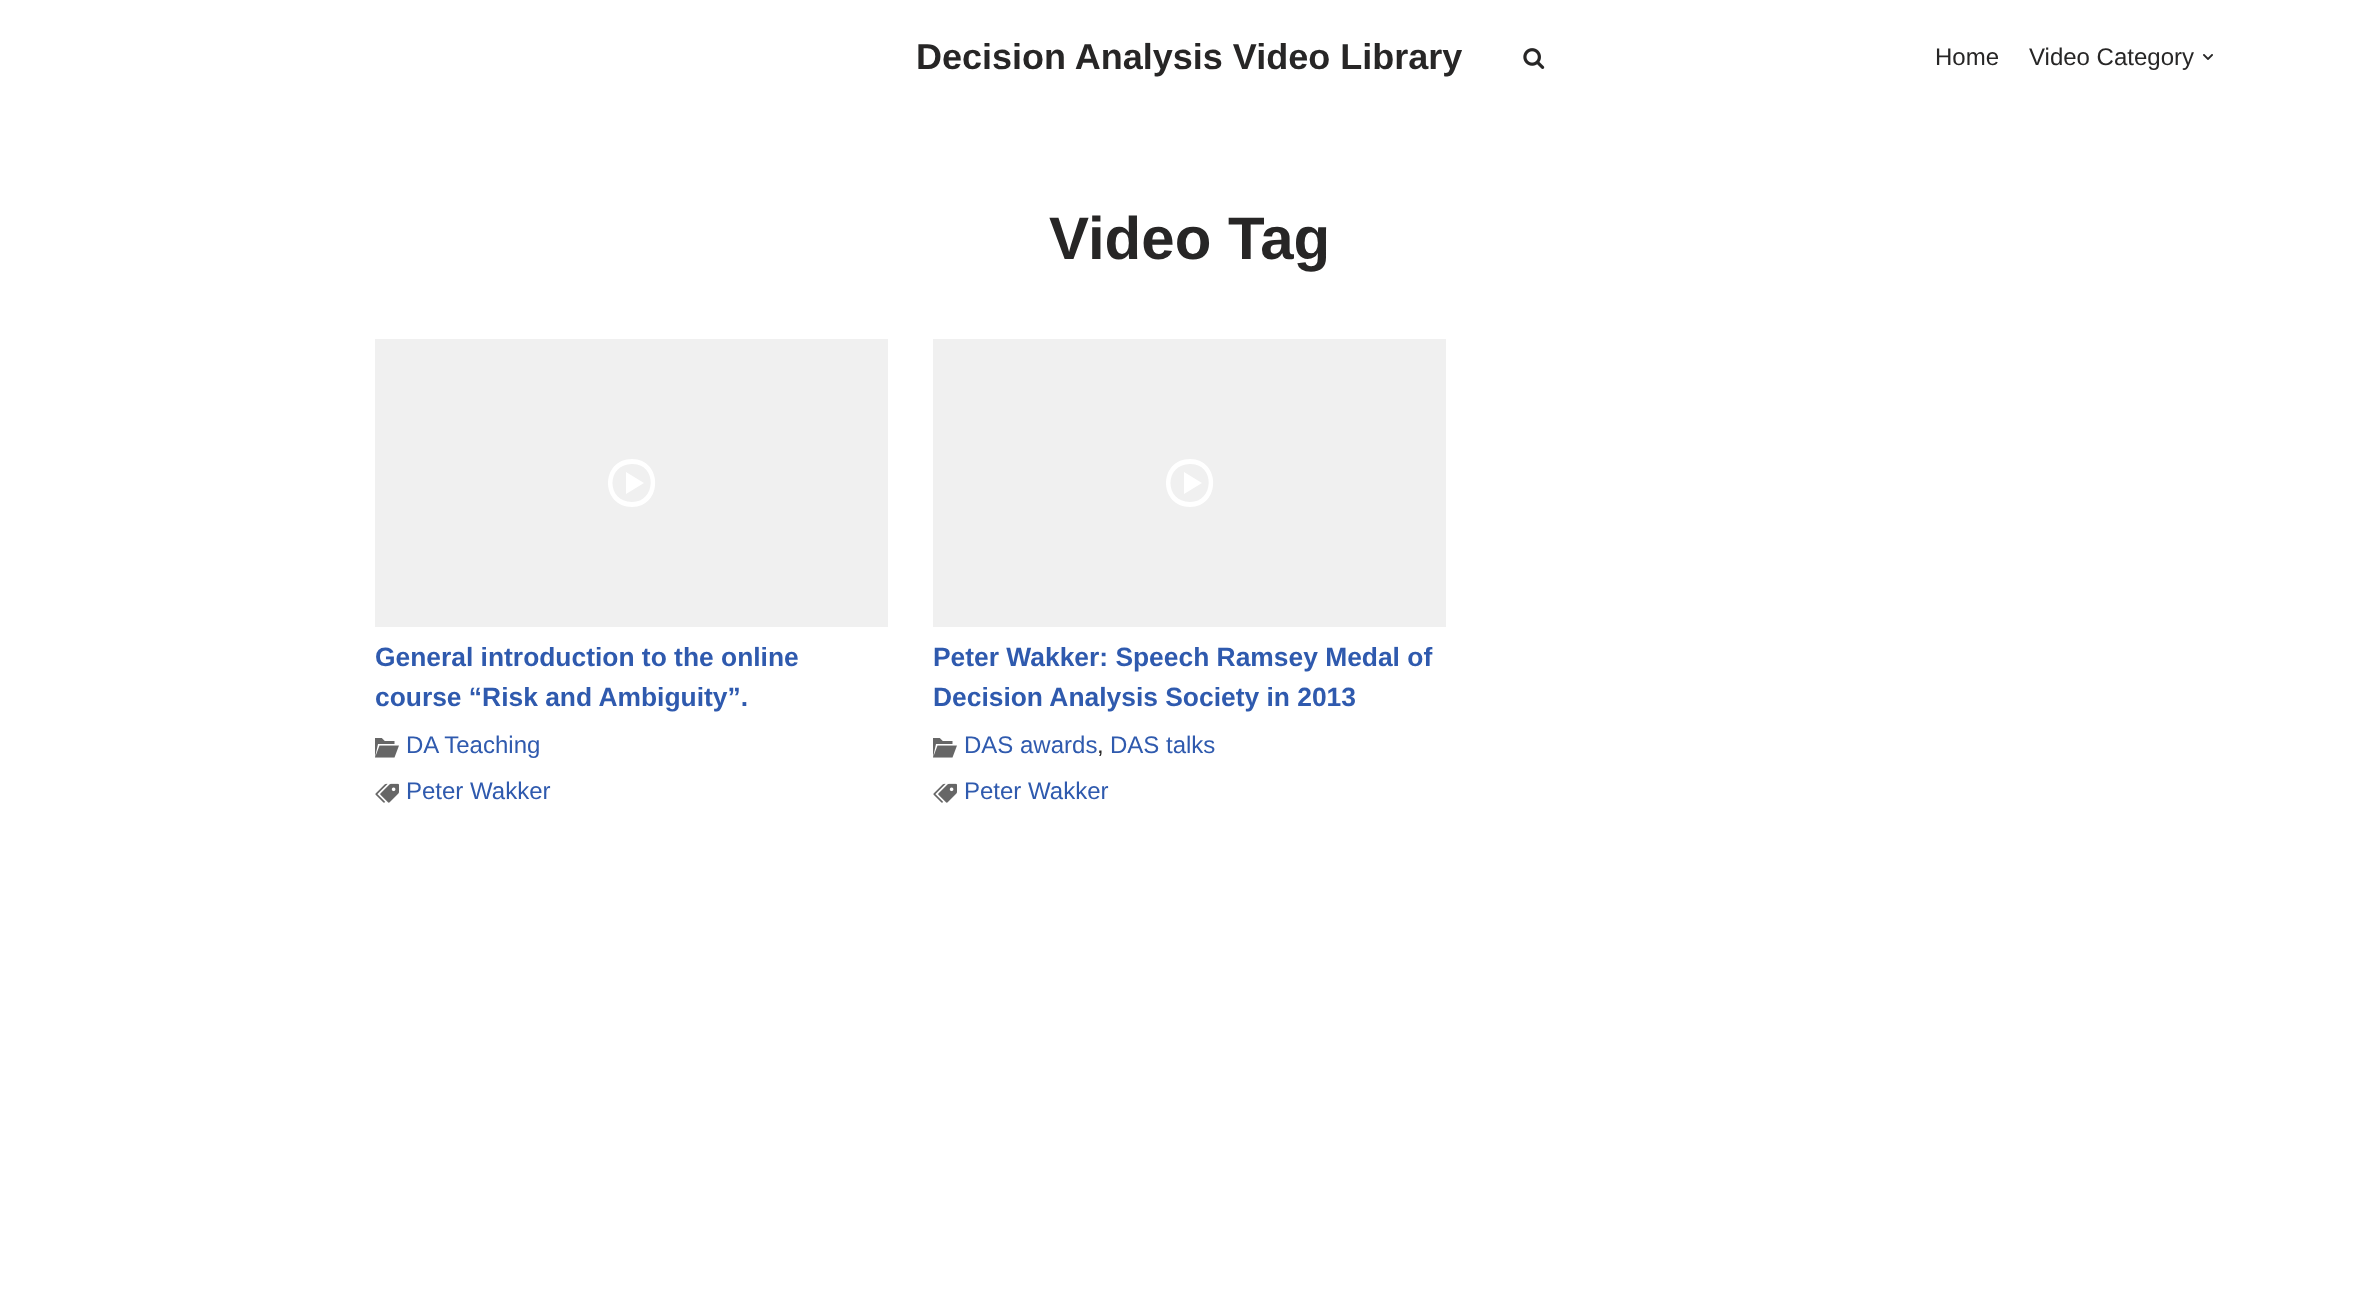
<svg xmlns="http://www.w3.org/2000/svg" width="2378" height="1307">
	<rect width="100%" height="100%" fill="#FFFFFF" />
	<text x="916" y="69" font-family="Liberation Sans" font-size="36" font-weight="700" fill="#272626">Decision Analysis Video Library</text>
	<image x="1523" y="48" width="22" height="21" href="assets/img1.png" />
	<g font-family="Liberation Sans" font-size="24" fill="#272626">
		<text x="1935" y="65">Home</text>
		<text x="2029" y="65">Video Category</text>
	</g>
	<image x="2203" y="54" width="10" height="6" href="assets/img2.png" />
	<text x="1049" y="259" font-family="Liberation Sans" font-size="60" font-weight="700" fill="#272626">Video Tag</text>
	<rect x="375" y="339" width="513" height="288" fill="#F0F0F0" />
	<path d="M632 459C600 459 600 507 632 507C663 507 663 459 632 459ZM632 502C606 502 606 464 632 464C657 463 657 502 632 502ZM626 472L644 483L626 494Z" fill="#FFFFFF" />
	<g font-family="Liberation Sans" font-size="26.4" font-weight="700" fill="#2F5AAE">
		<text x="375" y="666">General introduction to the online</text>
		<text x="375" y="706">course “Risk and Ambiguity”.</text>
	</g>
	<image x="375" y="738" width="24" height="20" href="assets/img3.png" />
	<text x="406" y="753" font-family="Liberation Sans" font-size="24" fill="#2F5AAE">DA Teaching</text>
	<image x="375" y="783" width="24" height="20" href="assets/img4.png" />
	<text x="406" y="799" font-family="Liberation Sans" font-size="24" fill="#2F5AAE">Peter Wakker</text>
	<rect x="933" y="339" width="513" height="288" fill="#F0F0F0" />
	<path d="M1190 459C1158 459 1158 507 1190 507C1221 507 1221 459 1190 459ZM1190 502C1164 502 1164 464 1190 464C1215 463 1215 502 1190 502ZM1184 472L1202 483L1184 494Z" fill="#FFFFFF" />
	<g font-family="Liberation Sans" font-size="26.4" font-weight="700" fill="#2F5AAE">
		<text x="933" y="666">Peter Wakker: Speech Ramsey Medal of</text>
		<text x="933" y="706">Decision Analysis Society in 2013</text>
	</g>
	<image x="933" y="738" width="24" height="20" href="assets/img3.png" />
	<text x="964" y="753" font-family="Liberation Sans" font-size="24" fill="#2F5AAE">DAS awards</text>
	<text x="1097" y="753" font-family="Liberation Sans" font-size="24" fill="#272626">,</text>
	<text x="1110" y="753" font-family="Liberation Sans" font-size="24" fill="#2F5AAE">DAS talks</text>
	<image x="933" y="783" width="24" height="20" href="assets/img4.png" />
	<text x="964" y="799" font-family="Liberation Sans" font-size="24" fill="#2F5AAE">Peter Wakker</text>
</svg>
